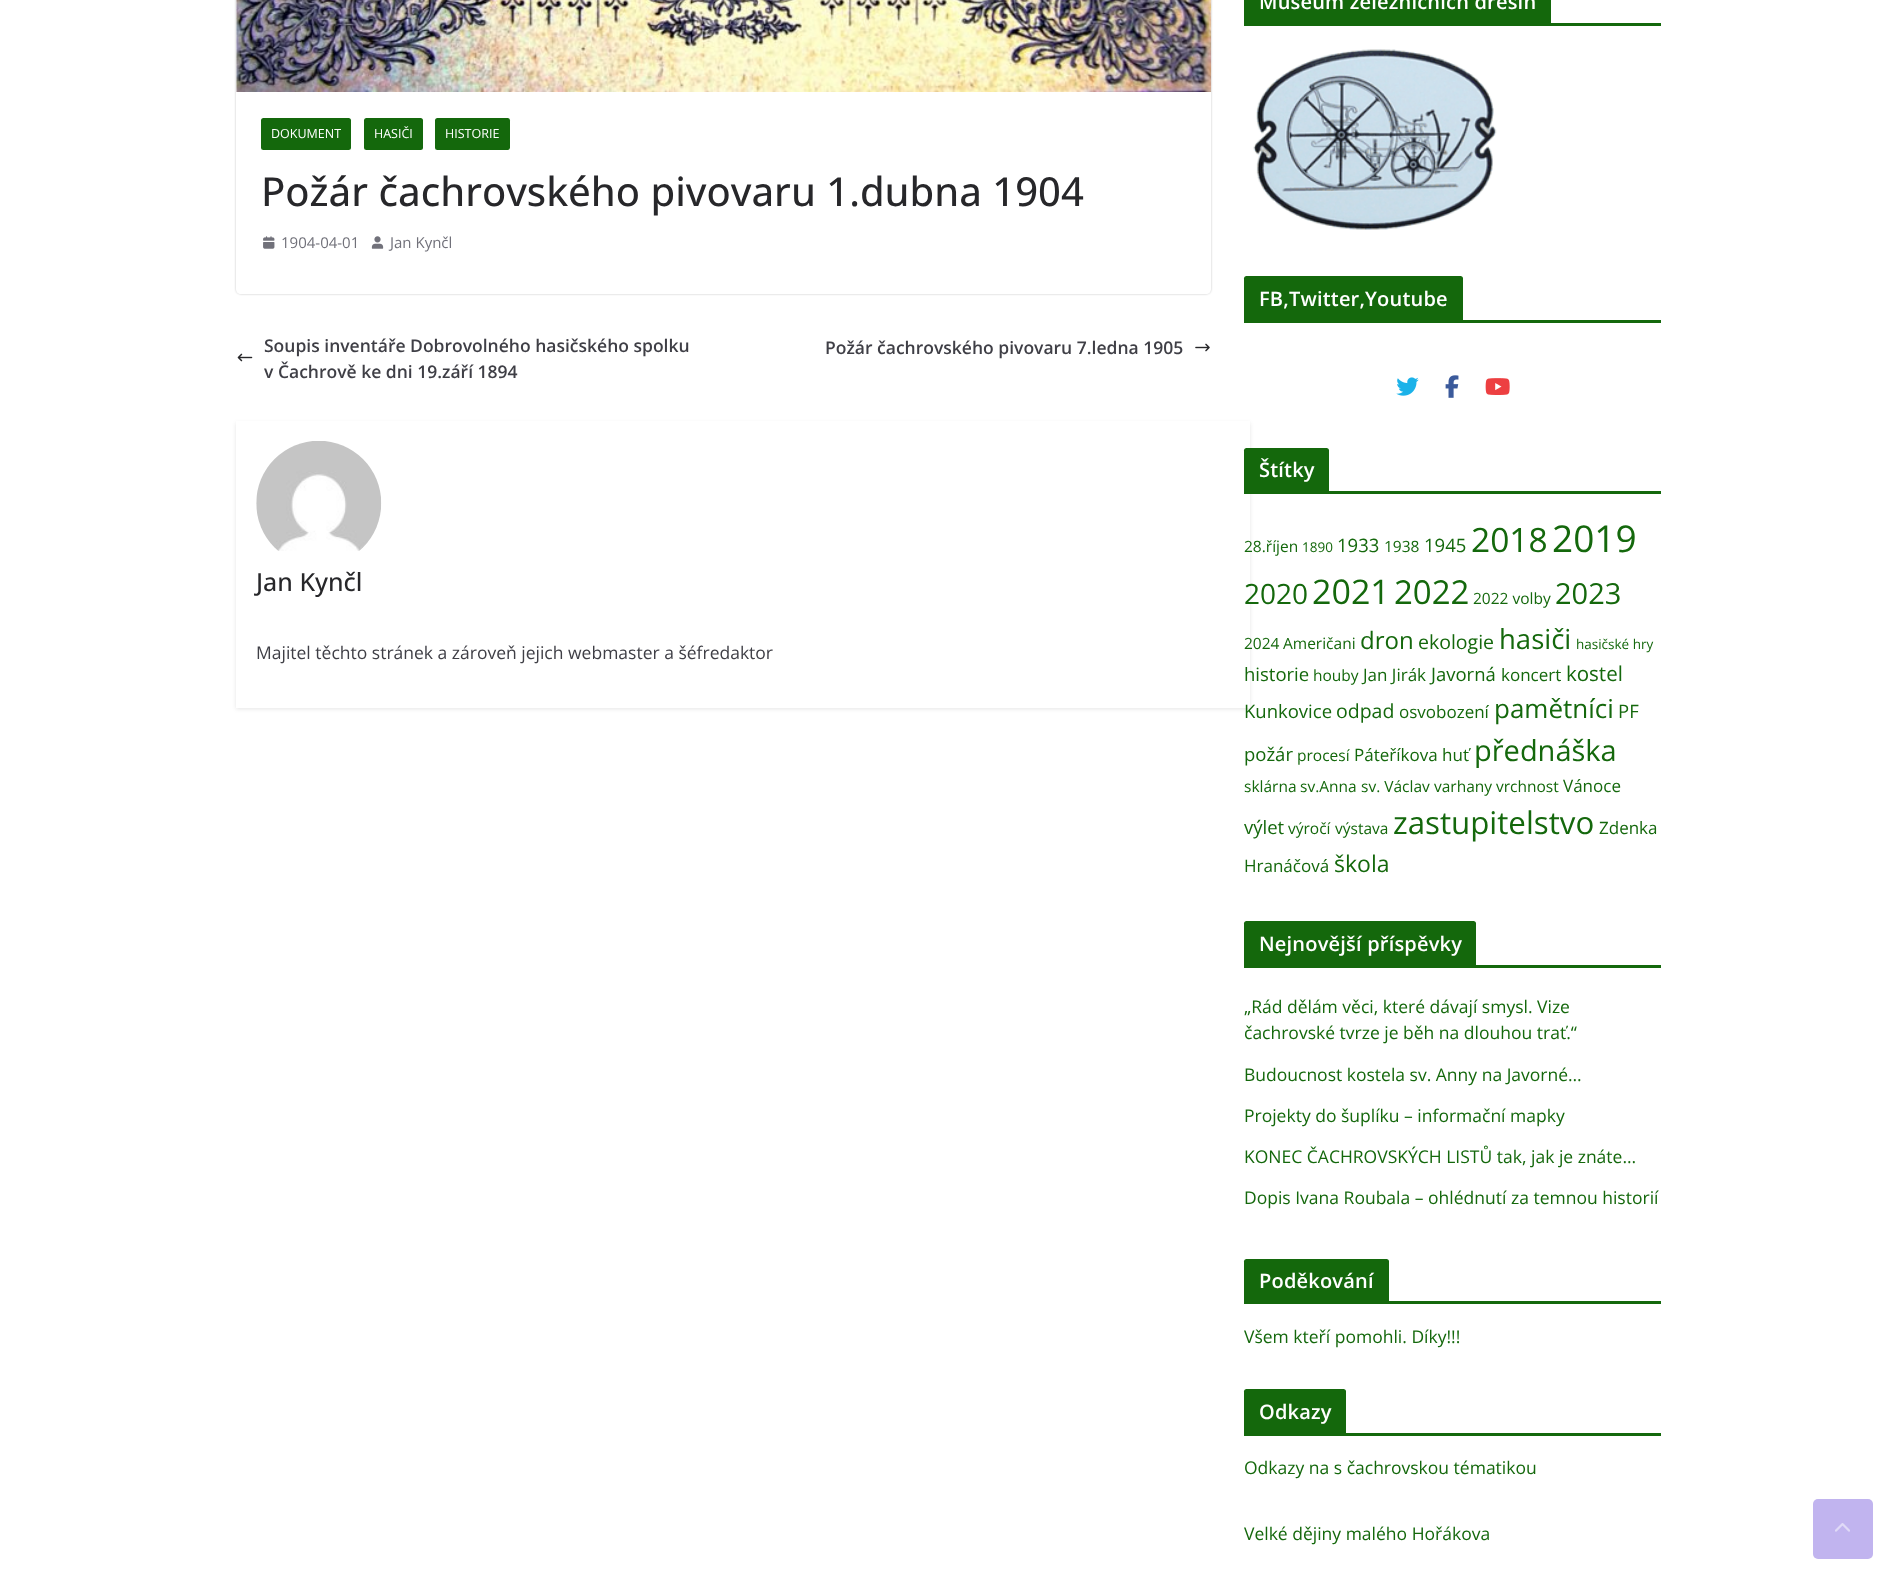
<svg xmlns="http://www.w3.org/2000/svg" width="1897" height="1583">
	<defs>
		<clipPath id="clip1"><path d="M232 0H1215V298H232ZM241-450H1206C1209-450 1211-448 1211-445V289C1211 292 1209 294 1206 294H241C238 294 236 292 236 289V-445C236-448 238-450 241-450Z" clip-rule="evenodd" /></clipPath>
		<clipPath id="clip2"><path d="M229 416H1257V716H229ZM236 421H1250V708H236Z" clip-rule="evenodd" /></clipPath>
	</defs>
	<rect width="100%" height="100%" fill="#FFFFFF" />
	<g clip-path="url(#clip1)">
		<rect x="236" y="-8" width="975" height="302" rx="5" fill="#000000" fill-opacity="0.24" filter="blur(1px)" />
	</g>
	<image x="236" y="0" width="976" height="92" href="assets/img1.png" />
	<rect x="261" y="118" width="90" height="32" rx="2.5" fill="#14680C" />
	<text x="271" y="138" font-family="Open Sans" font-size="12.5" fill="#FFFFFF">DOKUMENT</text>
	<rect x="364" y="118" width="59" height="32" rx="2.5" fill="#14680C" />
	<text x="374" y="138" font-family="Open Sans" font-size="12.5" fill="#FFFFFF">HASIČI</text>
	<rect x="435" y="118" width="75" height="32" rx="2.5" fill="#14680C" />
	<text x="445" y="138" font-family="Open Sans" font-size="12.5" fill="#FFFFFF">HISTORIE</text>
	<text x="261" y="206" font-family="Open Sans" font-size="40" font-weight="500" fill="#27272A">Požár čachrovského pivovaru 1.dubna 1904</text>
	<image x="263" y="236" width="12" height="13" href="assets/img2.png" />
	<text x="281" y="248" font-family="Open Sans" font-size="15" fill="#71717A">1904-04-01</text>
	<image x="371" y="236" width="13" height="13" href="assets/img3.png" />
	<text x="390" y="248" font-family="Open Sans" font-size="15" fill="#71717A">Jan Kynčl</text>
	<image x="237" y="353" width="16" height="9" href="assets/img4.png" />
	<g font-family="Open Sans" font-size="17.5" font-weight="600" fill="#3F3F46">
		<text x="264" y="352">Soupis inventáře Dobrovolného hasičského spolku</text>
		<text x="264" y="378">v Čachrově ke dni 19.září 1894</text>
		<text x="825" y="354">Požár čachrovského pivovaru 7.ledna 1905</text>
	</g>
	<image x="1195" y="343" width="15" height="9" href="assets/img5.png" />
	<g clip-path="url(#clip2)">
		<rect x="236" y="423" width="1014" height="286" fill="#000000" fill-opacity="0.1" filter="blur(2px)" />
	</g>
	<image x="256" y="441" width="126" height="110" href="assets/img6.png" />
	<text x="256" y="591" font-family="Open Sans" font-size="25" font-weight="500" fill="#27272A">Jan Kynčl</text>
	<text x="256" y="659" font-family="Open Sans" font-size="17.5" fill="#3F3F46">Majitel těchto stránek a zároveň jejich webmaster a šéfredaktor</text>
	<rect x="1244" y="23" width="417" height="3" fill="#14680C" />
	<rect x="1244" y="0" width="307" height="23" fill="#14680C" />
	<text x="1259" y="9" font-family="Open Sans" font-size="20" font-weight="600" letter-spacing="0.2" fill="#FFFFFF">Museum železničních dresin</text>
	<image x="1253" y="49" width="244" height="181" href="assets/img7.png" />
	<rect x="1244" y="320" width="417" height="3" fill="#14680C" />
	<path d="M1246.5 276H1460.5C1462 276 1463 277 1463 278.5V320H1244V278.5C1244 277 1245 276 1246.5 276Z" fill="#14680C" />
	<text x="1259" y="306" font-family="Open Sans" font-size="20" font-weight="600" letter-spacing="0.2" fill="#FFFFFF">FB,Twitter,Youtube</text>
	<image x="1396" y="377" width="23" height="19" href="assets/img8.png" />
	<image x="1445" y="375" width="14" height="23" href="assets/img9.png" />
	<image x="1485" y="378" width="25" height="17" href="assets/img10.png" />
	<rect x="1244" y="491" width="417" height="3" fill="#14680C" />
	<path d="M1246.5 448H1326.5C1328 448 1329 449 1329 450.5V491H1244V450.5C1244 449 1245 448 1246.5 448Z" fill="#14680C" />
	<text x="1259" y="477" font-family="Open Sans" font-size="20" font-weight="600" letter-spacing="0.2" fill="#FFFFFF">Štítky</text>
	<text x="1244" y="552" font-family="Open Sans" font-size="15.5" fill="#14680C">28.říjen</text>
	<text x="1302" y="552" font-family="Open Sans" font-size="13.5" fill="#14680C">1890</text>
	<text x="1337" y="552" font-family="Open Sans" font-size="18.5" fill="#14680C">1933</text>
	<text x="1384" y="552" font-family="Open Sans" font-size="15.5" fill="#14680C">1938</text>
	<text x="1424" y="552" font-family="Open Sans" font-size="18.5" fill="#14680C">1945</text>
	<text x="1471" y="552" font-family="Open Sans" font-size="33.5" fill="#14680C">2018</text>
	<text x="1552" y="552" font-family="Open Sans" font-size="37" fill="#14680C">2019</text>
	<text x="1244" y="604" font-family="Open Sans" font-size="28" fill="#14680C">2020</text>
	<text x="1312" y="604" font-family="Open Sans" font-size="34" fill="#14680C">2021</text>
	<text x="1394" y="604" font-family="Open Sans" font-size="33" fill="#14680C">2022</text>
	<text x="1473" y="604" font-family="Open Sans" font-size="15.5" fill="#14680C">2022 volby</text>
	<text x="1555" y="604" font-family="Open Sans" font-size="29" fill="#14680C">2023</text>
	<g font-family="Open Sans" font-size="15.5" fill="#14680C">
		<text x="1244" y="649">2024</text>
		<text x="1283" y="649">Američani</text>
	</g>
	<text x="1360" y="649" font-family="Open Sans" font-size="24" fill="#14680C">dron</text>
	<text x="1418" y="649" font-family="Open Sans" font-size="19.5" fill="#14680C">ekologie</text>
	<text x="1499" y="649" font-family="Open Sans" font-size="27.5" fill="#14680C">hasiči</text>
	<text x="1576" y="649" font-family="Open Sans" font-size="13.5" fill="#14680C">hasičské hry</text>
	<text x="1244" y="681" font-family="Open Sans" font-size="18.5" fill="#14680C">historie</text>
	<text x="1313" y="681" font-family="Open Sans" font-size="15.5" fill="#14680C">houby</text>
	<text x="1363" y="681" font-family="Open Sans" font-size="17" fill="#14680C">Jan Jirák</text>
	<text x="1431" y="681" font-family="Open Sans" font-size="18.5" fill="#14680C">Javorná</text>
	<text x="1501" y="681" font-family="Open Sans" font-size="17" fill="#14680C">koncert</text>
	<text x="1566" y="681" font-family="Open Sans" font-size="20.5" fill="#14680C">kostel</text>
	<text x="1244" y="718" font-family="Open Sans" font-size="18.5" fill="#14680C">Kunkovice</text>
	<text x="1336" y="718" font-family="Open Sans" font-size="19.5" fill="#14680C">odpad</text>
	<text x="1399" y="718" font-family="Open Sans" font-size="17" fill="#14680C">osvobození</text>
	<text x="1494" y="718" font-family="Open Sans" font-size="26" fill="#14680C">pamětníci</text>
	<g font-family="Open Sans" font-size="18.5" fill="#14680C">
		<text x="1618" y="718">PF</text>
		<text x="1244" y="761">požár</text>
	</g>
	<text x="1297" y="761" font-family="Open Sans" font-size="15.5" fill="#14680C">procesí</text>
	<text x="1354" y="761" font-family="Open Sans" font-size="17" fill="#14680C">Páteříkova huť</text>
	<text x="1474" y="761" font-family="Open Sans" font-size="29" fill="#14680C">přednáška</text>
	<g font-family="Open Sans" font-size="15.5" fill="#14680C">
		<text x="1244" y="792">sklárna</text>
		<text x="1300" y="792">sv.Anna</text>
		<text x="1361" y="792">sv. Václav</text>
		<text x="1434" y="792">varhany</text>
		<text x="1496" y="792">vrchnost</text>
	</g>
	<text x="1563" y="792" font-family="Open Sans" font-size="17" fill="#14680C">Vánoce</text>
	<text x="1244" y="834" font-family="Open Sans" font-size="18.5" fill="#14680C">výlet</text>
	<g font-family="Open Sans" font-size="15.5" fill="#14680C">
		<text x="1288" y="834">výročí</text>
		<text x="1335" y="834">výstava</text>
	</g>
	<text x="1393" y="834" font-family="Open Sans" font-size="31.25" fill="#14680C">zastupitelstvo</text>
	<g font-family="Open Sans" font-size="17" fill="#14680C">
		<text x="1599" y="834">Zdenka</text>
		<text x="1244" y="872">Hranáčová</text>
	</g>
	<text x="1334" y="872" font-family="Open Sans" font-size="23" fill="#14680C">škola</text>
	<rect x="1244" y="965" width="417" height="3" fill="#14680C" />
	<path d="M1246.5 921H1473.5C1475 921 1476 922 1476 923.5V965H1244V923.5C1244 922 1245 921 1246.5 921Z" fill="#14680C" />
	<text x="1259" y="951" font-family="Open Sans" font-size="20" font-weight="600" letter-spacing="0.2" fill="#FFFFFF">Nejnovější příspěvky</text>
	<g font-family="Open Sans" font-size="17.5" fill="#14680C">
		<text x="1244" y="1013">„Rád dělám věci, které dávají smysl. Vize</text>
		<text x="1244" y="1039">čachrovské tvrze je běh na dlouhou trať.“</text>
		<text x="1244" y="1081">Budoucnost kostela sv. Anny na Javorné…</text>
		<text x="1244" y="1122">Projekty do šuplíku – informační mapky</text>
		<text x="1244" y="1163">KONEC ČACHROVSKÝCH LISTŮ tak, jak je znáte…</text>
		<text x="1244" y="1204">Dopis Ivana Roubala – ohlédnutí za temnou historií</text>
	</g>
	<rect x="1244" y="1301" width="417" height="3" fill="#14680C" />
	<path d="M1246.5 1259H1386.5C1388 1259 1389 1260 1389 1261.5V1301H1244V1261.5C1244 1260 1245 1259 1246.5 1259Z" fill="#14680C" />
	<text x="1259" y="1288" font-family="Open Sans" font-size="20" font-weight="600" letter-spacing="0.2" fill="#FFFFFF">Poděkování</text>
	<text x="1244" y="1343" font-family="Open Sans" font-size="17.5" fill="#14680C">Všem kteří pomohli. Díky!!!</text>
	<rect x="1244" y="1433" width="417" height="3" fill="#14680C" />
	<path d="M1246.5 1389H1343.5C1345 1389 1346 1390 1346 1391.5V1433H1244V1391.5C1244 1390 1245 1389 1246.5 1389Z" fill="#14680C" />
	<text x="1259" y="1419" font-family="Open Sans" font-size="20" font-weight="600" letter-spacing="0.2" fill="#FFFFFF">Odkazy</text>
	<g font-family="Open Sans" font-size="17.5" fill="#14680C">
		<text x="1244" y="1474">Odkazy na s čachrovskou tématikou</text>
		<text x="1244" y="1540">Velké dějiny malého Hořákova</text>
	</g>
	<rect x="1813" y="1499" width="60" height="60" rx="5" fill="#C1B4EF" />
	<image x="1835" y="1523" width="15" height="9" href="assets/img11.png" />
</svg>
